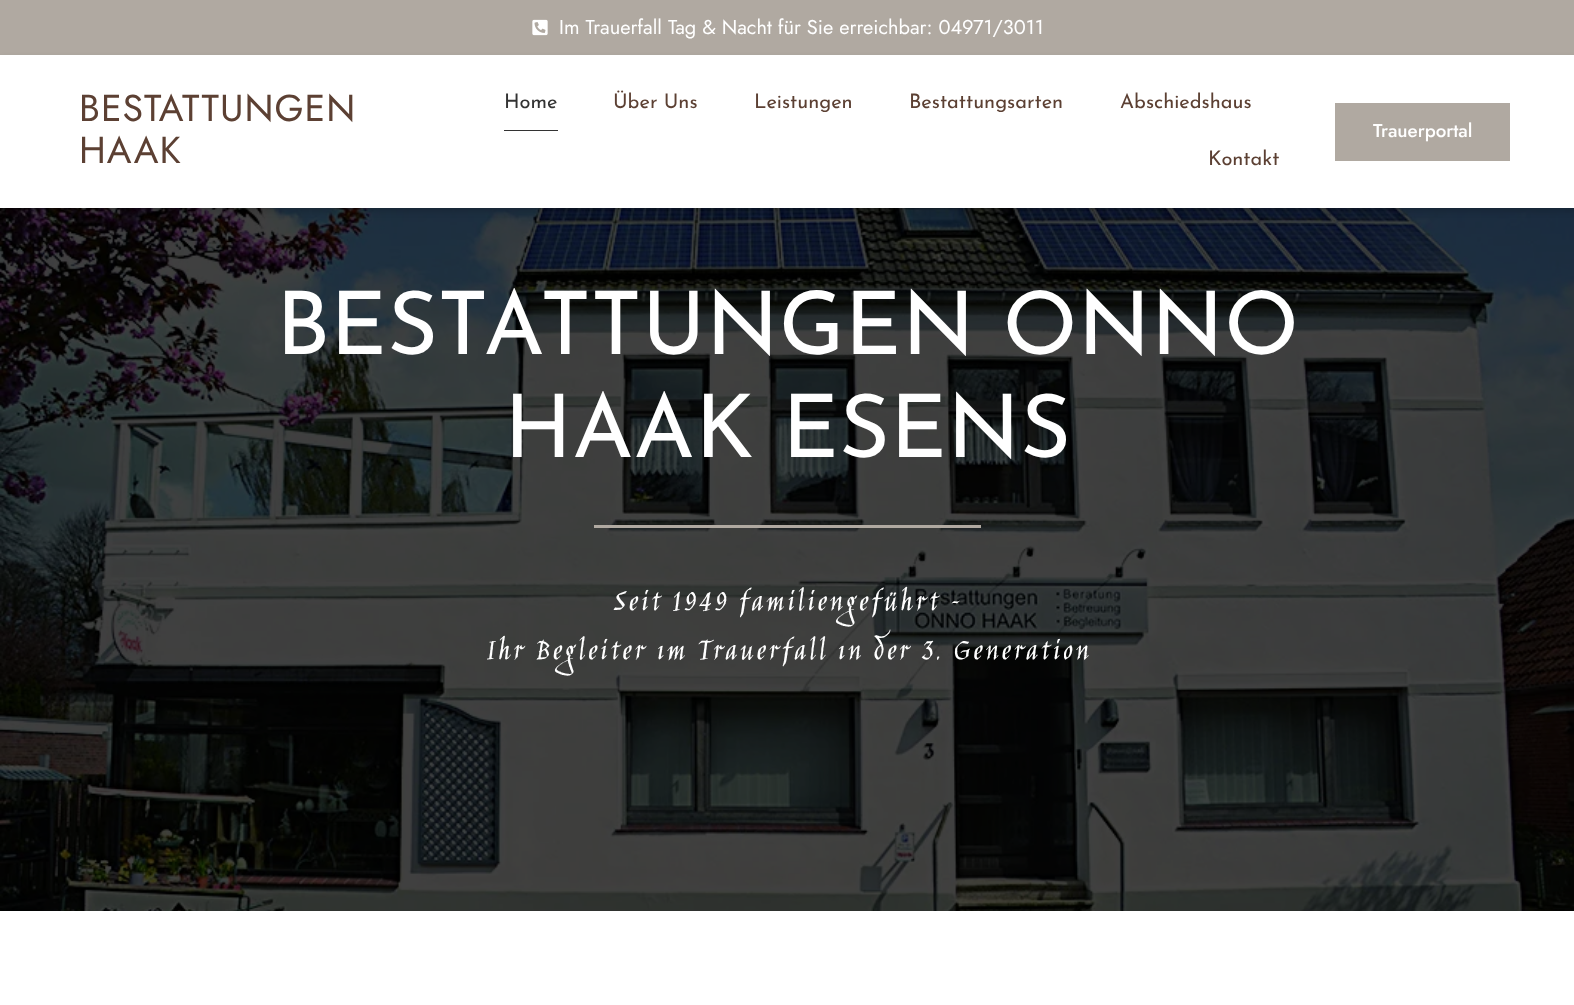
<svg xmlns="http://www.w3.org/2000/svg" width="1574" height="1005">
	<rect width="100%" height="100%" fill="#FFFFFF" />
	<rect x="0" y="0" width="1574" height="55" fill="#B0A9A1" />
	<image x="532" y="19" width="16" height="17" href="assets/img1.png" />
	<text x="559" y="34" font-family="Jost" font-size="20" fill="#FFFFFF">Im Trauerfall Tag &amp; Nacht für Sie erreichbar: 04971/3011</text>
	<image x="0" y="208" width="1574" height="703" href="assets/img2.png" />
	<rect x="0" y="59" width="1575" height="152" fill="#000000" fill-opacity="0.16" filter="blur(3px)" />
	<rect x="0" y="55" width="1574" height="153" fill="#FFFFFF" />
	<g font-family="Jost" font-size="37.5" letter-spacing="1" fill="#5C4033">
		<text x="79" y="121">BESTATTUNGEN</text>
		<text x="79" y="163">HAAK</text>
	</g>
	<text x="504" y="108" font-family="Josefin Sans" font-size="20" fill="#333333">Home</text>
	<rect x="504" y="130" width="54" height="1" fill="#333333" />
	<g font-family="Josefin Sans" font-size="20" fill="#5C4033">
		<text x="613" y="108">Über Uns</text>
		<text x="754" y="108">Leistungen</text>
		<text x="909" y="108">Bestattungsarten</text>
		<text x="1120" y="108">Abschiedshaus</text>
		<text x="1208" y="165">Kontakt</text>
	</g>
	<rect x="1335" y="103" width="175" height="58" fill="#B0A9A1" />
	<text x="1373" y="137" font-family="Jost" font-size="18.75" font-weight="500" fill="#FFFFFF">Trauerportal</text>
	<g font-family="Josefin Sans" font-size="87.5" fill="#FFFFFF">
		<text x="276" y="354">BESTATTUNGEN ONNO</text>
		<text x="504" y="457">HAAK ESENS</text>
	</g>
	<rect x="594" y="525" width="387" height="3" fill="#B0A9A1" />
	<g font-family="Jim Nightshade" font-size="32.5" letter-spacing="2.9" fill="#FFFFFF">
		<text x="613" y="610">Seit 1949 familiengeführt –</text>
		<text x="486" y="659">Ihr Begleiter ım Trauerfall ın der 3. Generation</text>
	</g>
</svg>
